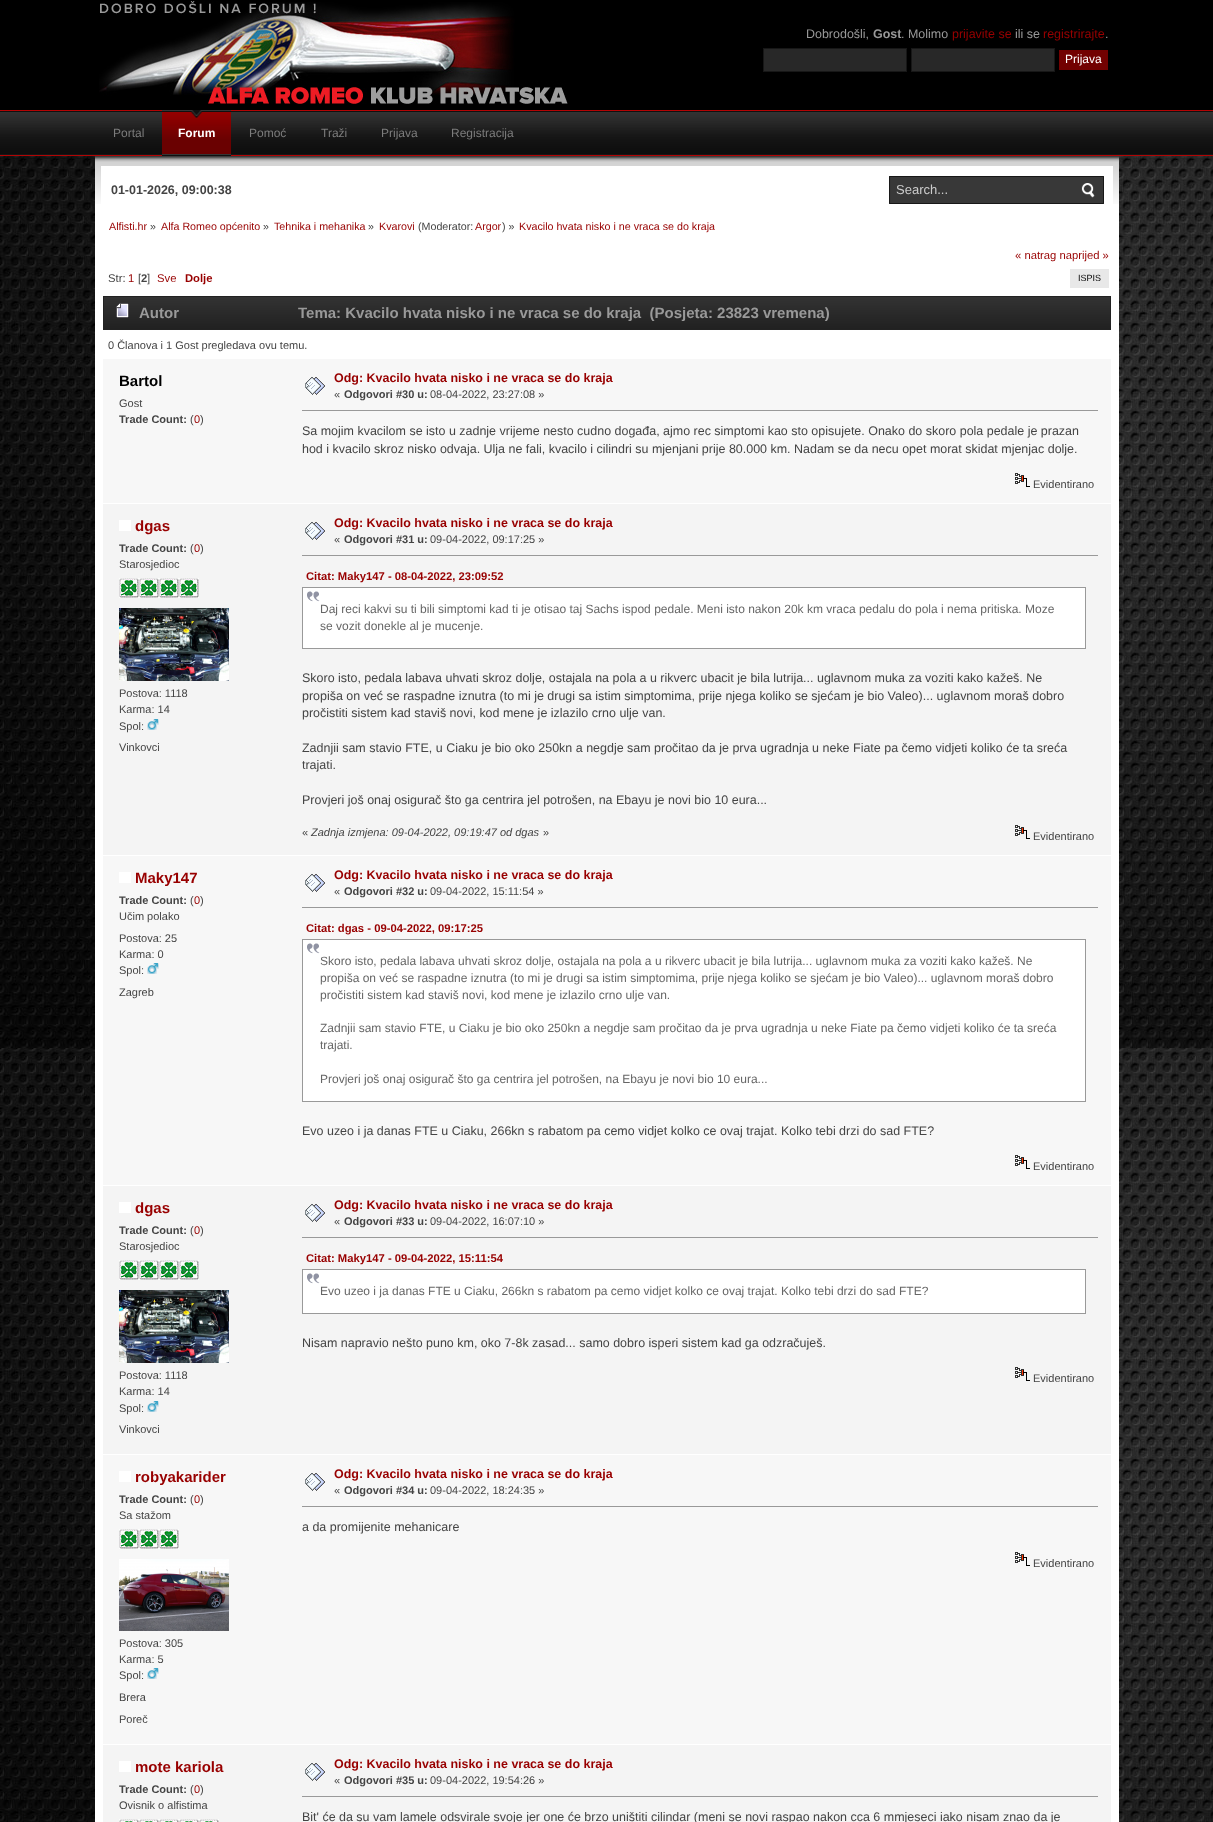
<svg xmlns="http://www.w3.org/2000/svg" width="1213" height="1822">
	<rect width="100%" height="100%" fill="#000000" />
	<image x="99" y="1" width="469" height="103" href="assets/img1.png" />
	<text x="806" y="38" font-family="Liberation Sans" font-size="12.48" fill="#999999">Dobrodošli,</text>
	<text x="873" y="38" font-family="Liberation Sans" font-size="12.48" font-weight="700" fill="#999999">Gost</text>
	<text x="901" y="38" font-family="Liberation Sans" font-size="12.48" fill="#999999">. Molimo</text>
	<text x="952" y="38" font-family="Liberation Sans" font-size="12.48" fill="#980000">prijavite se</text>
	<text x="1015" y="38" font-family="Liberation Sans" font-size="12.48" fill="#999999">ili se</text>
	<text x="1043" y="38" font-family="Liberation Sans" font-size="12.48" fill="#980000">registrirajte</text>
	<text x="1105" y="38" font-family="Liberation Sans" font-size="12.48" fill="#999999">.</text>
	<rect x="763.5" y="48.5" width="143" height="23" fill="#282828" stroke="#171717" />
	<rect x="911.5" y="48.5" width="143" height="23" fill="#282828" stroke="#171717" />
	<rect x="1059" y="50" width="49" height="20" fill="#720101" />
	<text x="1065" y="63" font-family="Liberation Sans" font-size="12" fill="#FFFFFF">Prijava</text>
	<image x="0" y="110" width="1213" height="46" href="assets/img2.png" />
	<text x="113" y="137" font-family="Liberation Sans" font-size="12" fill="#7C7C7C">Portal</text>
	<image x="162" y="110" width="69" height="46" href="assets/img3.png" />
	<text x="178" y="137" font-family="Liberation Sans" font-size="12" font-weight="700" fill="#FFFFFF">Forum</text>
	<g font-family="Liberation Sans" font-size="12" fill="#7C7C7C">
		<text x="249" y="137">Pomoć</text>
		<text x="321" y="137">Traži</text>
		<text x="381" y="137">Prijava</text>
		<text x="451" y="137">Registracija</text>
	</g>
	<image x="0" y="156" width="1213" height="1666" href="assets/img4.png" />
	<rect x="95" y="204" width="1024" height="1618" fill="#FFFFFF" />
	<image x="95" y="156" width="1024" height="48" href="assets/img5.png" />
	<rect x="101" y="166" width="1012" height="38" fill="#FFFFFF" />
	<text x="111" y="194" font-family="Liberation Sans" font-size="12.48" font-weight="700" fill="#444444">01-01-2026, 09:00:38</text>
	<image x="889" y="176" width="215" height="28" href="assets/img6.png" />
	<text x="896" y="194" font-family="Liberation Sans" font-size="13" fill="#CCCCCC">Search...</text>
	<text x="109" y="230" font-family="Liberation Sans" font-size="10.7" fill="#980000">Alfisti.hr</text>
	<text x="150" y="230" font-family="Liberation Sans" font-size="10.7" fill="#444444">»</text>
	<text x="161" y="230" font-family="Liberation Sans" font-size="10.7" fill="#980000">Alfa Romeo općenito</text>
	<text x="263" y="230" font-family="Liberation Sans" font-size="10.7" fill="#444444">»</text>
	<text x="274" y="230" font-family="Liberation Sans" font-size="10.7" fill="#980000">Tehnika i mehanika</text>
	<text x="368" y="230" font-family="Liberation Sans" font-size="10.7" fill="#444444">»</text>
	<text x="379" y="230" font-family="Liberation Sans" font-size="10.7" fill="#980000">Kvarovi</text>
	<text x="418" y="230" font-family="Liberation Sans" font-size="10.7" fill="#444444">(Moderator:</text>
	<text x="475" y="230" font-family="Liberation Sans" font-size="10.7" fill="#980000">Argor</text>
	<text x="502" y="230" font-family="Liberation Sans" font-size="10.7" fill="#444444">) »</text>
	<text x="519" y="230" font-family="Liberation Sans" font-size="10.7" fill="#980000">Kvacilo hvata nisko i ne vraca se do kraja</text>
	<text x="1015" y="259" font-family="Liberation Sans" font-size="11.25" fill="#980000">« natrag naprijed »</text>
	<text x="108" y="282" font-family="Liberation Sans" font-size="11.25" fill="#444444">Str:</text>
	<text x="128" y="282" font-family="Liberation Sans" font-size="11.25" fill="#980000">1</text>
	<text x="138" y="282" font-family="Liberation Sans" font-size="11.25" fill="#444444">[</text>
	<text x="141" y="282" font-family="Liberation Sans" font-size="11.25" font-weight="700" fill="#444444">2</text>
	<text x="147" y="282" font-family="Liberation Sans" font-size="11.25" fill="#444444">]</text>
	<text x="157" y="282" font-family="Liberation Sans" font-size="11.25" fill="#980000">Sve</text>
	<text x="185" y="282" font-family="Liberation Sans" font-size="11.25" font-weight="700" fill="#980000">Dolje</text>
	<rect x="1070" y="269" width="39" height="19" fill="#E8E8E8" />
	<text x="1078" y="281" font-family="Liberation Sans" font-size="9" fill="#000000">ISPIS</text>
	<image x="103" y="296" width="1008" height="34" href="assets/img7.png" />
	<rect x="1110" y="297" width="1" height="22" fill="#222222" />
	<image x="116" y="303" width="13" height="15" href="assets/img8.png" />
	<g font-family="Liberation Sans" font-size="15" font-weight="700" fill="#999999">
		<text x="139" y="318">Autor</text>
		<text x="298" y="318" xml:space="preserve">Tema: Kvacilo hvata nisko i ne vraca se do kraja  (Posjeta: 23823 vremena)</text>
	</g>
	<text x="108" y="349" font-family="Liberation Sans" font-size="11" fill="#444444">0 Članova i 1 Gost pregledava ovu temu.</text>
	<rect x="103" y="359" width="1008" height="144" fill="#F7F7F7" />
	<text x="119" y="386" font-family="Liberation Sans" font-size="15" font-weight="700" fill="#000000">Bartol</text>
	<text x="119" y="407" font-family="Liberation Sans" font-size="11" fill="#444444">Gost</text>
	<text x="119" y="423" font-family="Liberation Sans" font-size="11" font-weight="700" fill="#444444">Trade Count:</text>
	<text x="190" y="423" font-family="Liberation Sans" font-size="11" fill="#444444">(</text>
	<text x="194" y="423" font-family="Liberation Sans" font-size="11" fill="#980000">0</text>
	<text x="200" y="423" font-family="Liberation Sans" font-size="11" fill="#444444">)</text>
	<image x="305" y="377" width="20" height="18" href="assets/img9.png" />
	<text x="334" y="382" font-family="Liberation Sans" font-size="12.48" font-weight="700" fill="#980000">Odg: Kvacilo hvata nisko i ne vraca se do kraja</text>
	<text x="334" y="398" font-family="Liberation Sans" font-size="11" fill="#444444">«</text>
	<text x="344" y="398" font-family="Liberation Sans" font-size="11" font-weight="700" fill="#444444">Odgovori #30 u:</text>
	<text x="430" y="398" font-family="Liberation Sans" font-size="11" fill="#444444">08-04-2022, 23:27:08 »</text>
	<rect x="302" y="410" width="796" height="1" fill="#999999" />
	<g font-family="Liberation Sans" font-size="12.48" fill="#444444">
		<text x="302" y="435">Sa mojim kvacilom se isto u zadnje vrijeme nesto cudno događa, ajmo rec simptomi kao sto opisujete. Onako do skoro pola pedale je prazan</text>
		<text x="302" y="453">hod i kvacilo skroz nisko odvaja. Ulja ne fali, kvacilo i cilindri su mjenjani prije 80.000 km. Nadam se da necu opet morat skidat mjenjac dolje.</text>
	</g>
	<image x="1015" y="473" width="15" height="14" href="assets/img10.png" />
	<text x="1033" y="488" font-family="Liberation Sans" font-size="11" fill="#444444">Evidentirano</text>
	<rect x="103" y="504" width="1008" height="351" fill="#F4F4F4" />
	<rect x="119" y="520" width="12" height="11" fill="#FFFFFF" />
	<text x="135" y="531" font-family="Liberation Sans" font-size="15" font-weight="700" fill="#980000">dgas</text>
	<text x="119" y="552" font-family="Liberation Sans" font-size="11" font-weight="700" fill="#444444">Trade Count:</text>
	<text x="190" y="552" font-family="Liberation Sans" font-size="11" fill="#444444">(</text>
	<text x="194" y="552" font-family="Liberation Sans" font-size="11" fill="#980000">0</text>
	<g font-family="Liberation Sans" font-size="11" fill="#444444">
		<text x="200" y="552">)</text>
		<text x="119" y="568">Starosjedioc</text>
	</g>
	<image x="119" y="578" width="20" height="20" href="assets/img11.png" />
	<image x="139" y="578" width="20" height="20" href="assets/img11.png" />
	<image x="159" y="578" width="20" height="20" href="assets/img11.png" />
	<image x="179" y="578" width="20" height="20" href="assets/img11.png" />
	<image x="119" y="608" width="110" height="73" href="assets/img12.png" />
	<g font-family="Liberation Sans" font-size="11" fill="#444444">
		<text x="119" y="697">Postova: 1118</text>
		<text x="119" y="713">Karma: 14</text>
		<text x="119" y="730">Spol:</text>
	</g>
	<image x="147" y="719" width="12" height="11" href="assets/img13.png" />
	<text x="119" y="751" font-family="Liberation Sans" font-size="11" fill="#444444">Vinkovci</text>
	<image x="305" y="522" width="20" height="18" href="assets/img14.png" />
	<text x="334" y="527" font-family="Liberation Sans" font-size="12.48" font-weight="700" fill="#980000">Odg: Kvacilo hvata nisko i ne vraca se do kraja</text>
	<text x="334" y="543" font-family="Liberation Sans" font-size="11" fill="#444444">«</text>
	<text x="344" y="543" font-family="Liberation Sans" font-size="11" font-weight="700" fill="#444444">Odgovori #31 u:</text>
	<text x="430" y="543" font-family="Liberation Sans" font-size="11" fill="#444444">09-04-2022, 09:17:25 »</text>
	<rect x="302" y="555" width="796" height="1" fill="#999999" />
	<text x="306" y="580" font-family="Liberation Sans" font-size="11.25" font-weight="700" fill="#980000">Citat: Maky147 - 08-04-2022, 23:09:52</text>
	<rect x="303" y="588" width="782" height="60" fill="#FFFFFF" />
	<image x="307" y="591" width="13" height="11" href="assets/img15.png" />
	<rect x="302.5" y="587.5" width="783" height="61" fill="none" stroke="#999999" />
	<g font-family="Liberation Sans" font-size="12" fill="#666666">
		<text x="320" y="613">Daj reci kakvi su ti bili simptomi kad ti je otisao taj Sachs ispod pedale. Meni isto nakon 20k km vraca pedalu do pola i nema pritiska. Moze</text>
		<text x="320" y="630">se vozit donekle al je mucenje.</text>
	</g>
	<g font-family="Liberation Sans" font-size="12.48" fill="#444444">
		<text x="302" y="682">Skoro isto, pedala labava uhvati skroz dolje, ostajala na pola a u rikverc ubacit je bila lutrija... uglavnom muka za voziti kako kažeš. Ne</text>
		<text x="302" y="700">propiša on već se raspadne iznutra (to mi je drugi sa istim simptomima, prije njega koliko se sjećam je bio Valeo)... uglavnom moraš dobro</text>
		<text x="302" y="717">pročistiti sistem kad staviš novi, kod mene je izlazilo crno ulje van.</text>
		<text x="302" y="752">Zadnjii sam stavio FTE, u Ciaku je bio oko 250kn a negdje sam pročitao da je prva ugradnja u neke Fiate pa čemo vidjeti koliko će ta sreća</text>
		<text x="302" y="769">trajati.</text>
		<text x="302" y="804">Provjeri još onaj osigurač što ga centrira jel potrošen, na Ebayu je novi bio 10 eura...</text>
	</g>
	<text x="302" y="836" font-family="Liberation Sans" font-size="11" fill="#444444">«</text>
	<text x="311" y="836" font-family="Liberation Sans" font-size="11" font-style="italic" fill="#444444">Zadnja izmjena: 09-04-2022, 09:19:47 od dgas</text>
	<text x="543" y="836" font-family="Liberation Sans" font-size="11" fill="#444444">»</text>
	<image x="1015" y="825" width="15" height="14" href="assets/img16.png" />
	<text x="1033" y="840" font-family="Liberation Sans" font-size="11" fill="#444444">Evidentirano</text>
	<rect x="103" y="856" width="1008" height="329" fill="#F7F7F7" />
	<rect x="119" y="872" width="12" height="11" fill="#FFFFFF" />
	<text x="135" y="883" font-family="Liberation Sans" font-size="15" font-weight="700" fill="#980000">Maky147</text>
	<text x="119" y="904" font-family="Liberation Sans" font-size="11" font-weight="700" fill="#444444">Trade Count:</text>
	<text x="190" y="904" font-family="Liberation Sans" font-size="11" fill="#444444">(</text>
	<text x="194" y="904" font-family="Liberation Sans" font-size="11" fill="#980000">0</text>
	<g font-family="Liberation Sans" font-size="11" fill="#444444">
		<text x="200" y="904">)</text>
		<text x="119" y="920">Učim polako</text>
		<text x="119" y="942">Postova: 25</text>
		<text x="119" y="958">Karma: 0</text>
		<text x="119" y="974">Spol:</text>
	</g>
	<image x="147" y="963" width="12" height="11" href="assets/img17.png" />
	<text x="119" y="996" font-family="Liberation Sans" font-size="11" fill="#444444">Zagreb</text>
	<image x="305" y="874" width="20" height="18" href="assets/img9.png" />
	<text x="334" y="879" font-family="Liberation Sans" font-size="12.48" font-weight="700" fill="#980000">Odg: Kvacilo hvata nisko i ne vraca se do kraja</text>
	<text x="334" y="895" font-family="Liberation Sans" font-size="11" fill="#444444">«</text>
	<text x="344" y="895" font-family="Liberation Sans" font-size="11" font-weight="700" fill="#444444">Odgovori #32 u:</text>
	<text x="430" y="895" font-family="Liberation Sans" font-size="11" fill="#444444">09-04-2022, 15:11:54 »</text>
	<rect x="302" y="907" width="796" height="1" fill="#999999" />
	<text x="306" y="932" font-family="Liberation Sans" font-size="11.25" font-weight="700" fill="#980000">Citat: dgas - 09-04-2022, 09:17:25</text>
	<rect x="303" y="940" width="782" height="161" fill="#FFFFFF" />
	<image x="307" y="943" width="13" height="11" href="assets/img15.png" />
	<rect x="302.5" y="939.5" width="783" height="162" fill="none" stroke="#999999" />
	<g font-family="Liberation Sans" font-size="12" fill="#666666">
		<text x="320" y="965">Skoro isto, pedala labava uhvati skroz dolje, ostajala na pola a u rikverc ubacit je bila lutrija... uglavnom muka za voziti kako kažeš. Ne</text>
		<text x="320" y="982">propiša on već se raspadne iznutra (to mi je drugi sa istim simptomima, prije njega koliko se sjećam je bio Valeo)... uglavnom moraš dobro</text>
		<text x="320" y="999">pročistiti sistem kad staviš novi, kod mene je izlazilo crno ulje van.</text>
		<text x="320" y="1032">Zadnjii sam stavio FTE, u Ciaku je bio oko 250kn a negdje sam pročitao da je prva ugradnja u neke Fiate pa čemo vidjeti koliko će ta sreća</text>
		<text x="320" y="1049">trajati.</text>
		<text x="320" y="1083">Provjeri još onaj osigurač što ga centrira jel potrošen, na Ebayu je novi bio 10 eura...</text>
	</g>
	<text x="302" y="1135" font-family="Liberation Sans" font-size="12.48" fill="#444444">Evo uzeo i ja danas FTE u Ciaku, 266kn s rabatom pa cemo vidjet kolko ce ovaj trajat. Kolko tebi drzi do sad FTE?</text>
	<image x="1015" y="1155" width="15" height="14" href="assets/img10.png" />
	<text x="1033" y="1170" font-family="Liberation Sans" font-size="11" fill="#444444">Evidentirano</text>
	<rect x="103" y="1186" width="1008" height="268" fill="#F4F4F4" />
	<rect x="119" y="1202" width="12" height="11" fill="#FFFFFF" />
	<text x="135" y="1213" font-family="Liberation Sans" font-size="15" font-weight="700" fill="#980000">dgas</text>
	<text x="119" y="1234" font-family="Liberation Sans" font-size="11" font-weight="700" fill="#444444">Trade Count:</text>
	<text x="190" y="1234" font-family="Liberation Sans" font-size="11" fill="#444444">(</text>
	<text x="194" y="1234" font-family="Liberation Sans" font-size="11" fill="#980000">0</text>
	<g font-family="Liberation Sans" font-size="11" fill="#444444">
		<text x="200" y="1234">)</text>
		<text x="119" y="1250">Starosjedioc</text>
	</g>
	<image x="119" y="1260" width="20" height="20" href="assets/img11.png" />
	<image x="139" y="1260" width="20" height="20" href="assets/img11.png" />
	<image x="159" y="1260" width="20" height="20" href="assets/img11.png" />
	<image x="179" y="1260" width="20" height="20" href="assets/img11.png" />
	<image x="119" y="1290" width="110" height="73" href="assets/img12.png" />
	<g font-family="Liberation Sans" font-size="11" fill="#444444">
		<text x="119" y="1379">Postova: 1118</text>
		<text x="119" y="1395">Karma: 14</text>
		<text x="119" y="1412">Spol:</text>
	</g>
	<image x="147" y="1401" width="12" height="11" href="assets/img13.png" />
	<text x="119" y="1433" font-family="Liberation Sans" font-size="11" fill="#444444">Vinkovci</text>
	<image x="305" y="1204" width="20" height="18" href="assets/img14.png" />
	<text x="334" y="1209" font-family="Liberation Sans" font-size="12.48" font-weight="700" fill="#980000">Odg: Kvacilo hvata nisko i ne vraca se do kraja</text>
	<text x="334" y="1225" font-family="Liberation Sans" font-size="11" fill="#444444">«</text>
	<text x="344" y="1225" font-family="Liberation Sans" font-size="11" font-weight="700" fill="#444444">Odgovori #33 u:</text>
	<text x="430" y="1225" font-family="Liberation Sans" font-size="11" fill="#444444">09-04-2022, 16:07:10 »</text>
	<rect x="302" y="1237" width="796" height="1" fill="#999999" />
	<text x="306" y="1262" font-family="Liberation Sans" font-size="11.25" font-weight="700" fill="#980000">Citat: Maky147 - 09-04-2022, 15:11:54</text>
	<rect x="303" y="1270" width="782" height="43" fill="#FFFFFF" />
	<image x="307" y="1273" width="13" height="11" href="assets/img15.png" />
	<rect x="302.5" y="1269.5" width="783" height="44" fill="none" stroke="#999999" />
	<text x="320" y="1295" font-family="Liberation Sans" font-size="12" fill="#666666">Evo uzeo i ja danas FTE u Ciaku, 266kn s rabatom pa cemo vidjet kolko ce ovaj trajat. Kolko tebi drzi do sad FTE?</text>
	<text x="302" y="1347" font-family="Liberation Sans" font-size="12.48" fill="#444444">Nisam napravio nešto puno km, oko 7-8k zasad... samo dobro isperi sistem kad ga odzračuješ.</text>
	<image x="1015" y="1367" width="15" height="14" href="assets/img16.png" />
	<text x="1033" y="1382" font-family="Liberation Sans" font-size="11" fill="#444444">Evidentirano</text>
	<rect x="103" y="1455" width="1008" height="289" fill="#F7F7F7" />
	<rect x="119" y="1471" width="12" height="11" fill="#FFFFFF" />
	<text x="135" y="1482" font-family="Liberation Sans" font-size="15" font-weight="700" fill="#980000">robyakarider</text>
	<text x="119" y="1503" font-family="Liberation Sans" font-size="11" font-weight="700" fill="#444444">Trade Count:</text>
	<text x="190" y="1503" font-family="Liberation Sans" font-size="11" fill="#444444">(</text>
	<text x="194" y="1503" font-family="Liberation Sans" font-size="11" fill="#980000">0</text>
	<g font-family="Liberation Sans" font-size="11" fill="#444444">
		<text x="200" y="1503">)</text>
		<text x="119" y="1519">Sa stažom</text>
	</g>
	<image x="119" y="1529" width="20" height="20" href="assets/img11.png" />
	<image x="139" y="1529" width="20" height="20" href="assets/img11.png" />
	<image x="159" y="1529" width="20" height="20" href="assets/img11.png" />
	<image x="119" y="1559" width="110" height="72" href="assets/img18.png" />
	<g font-family="Liberation Sans" font-size="11" fill="#444444">
		<text x="119" y="1647">Postova: 305</text>
		<text x="119" y="1663">Karma: 5</text>
		<text x="119" y="1679">Spol:</text>
	</g>
	<image x="147" y="1668" width="12" height="11" href="assets/img17.png" />
	<g font-family="Liberation Sans" font-size="11" fill="#444444">
		<text x="119" y="1701">Brera</text>
		<text x="119" y="1723">Poreč</text>
	</g>
	<image x="305" y="1473" width="20" height="18" href="assets/img9.png" />
	<text x="334" y="1478" font-family="Liberation Sans" font-size="12.48" font-weight="700" fill="#980000">Odg: Kvacilo hvata nisko i ne vraca se do kraja</text>
	<text x="334" y="1494" font-family="Liberation Sans" font-size="11" fill="#444444">«</text>
	<text x="344" y="1494" font-family="Liberation Sans" font-size="11" font-weight="700" fill="#444444">Odgovori #34 u:</text>
	<text x="430" y="1494" font-family="Liberation Sans" font-size="11" fill="#444444">09-04-2022, 18:24:35 »</text>
	<rect x="302" y="1506" width="796" height="1" fill="#999999" />
	<text x="302" y="1531" font-family="Liberation Sans" font-size="12.48" fill="#444444">a da promijenite mehanicare</text>
	<image x="1015" y="1552" width="15" height="14" href="assets/img10.png" />
	<text x="1033" y="1567" font-family="Liberation Sans" font-size="11" fill="#444444">Evidentirano</text>
	<rect x="103" y="1745" width="1008" height="77" fill="#F4F4F4" />
	<rect x="119" y="1761" width="12" height="11" fill="#FFFFFF" />
	<text x="135" y="1772" font-family="Liberation Sans" font-size="15" font-weight="700" fill="#980000">mote kariola</text>
	<text x="119" y="1793" font-family="Liberation Sans" font-size="11" font-weight="700" fill="#444444">Trade Count:</text>
	<text x="190" y="1793" font-family="Liberation Sans" font-size="11" fill="#444444">(</text>
	<text x="194" y="1793" font-family="Liberation Sans" font-size="11" fill="#980000">0</text>
	<g font-family="Liberation Sans" font-size="11" fill="#444444">
		<text x="200" y="1793">)</text>
		<text x="119" y="1809">Ovisnik o alfistima</text>
	</g>
	<image x="119" y="1819" width="20" height="3" href="assets/img19.png" />
	<image x="139" y="1819" width="20" height="3" href="assets/img19.png" />
	<image x="159" y="1819" width="20" height="3" href="assets/img19.png" />
	<image x="179" y="1819" width="20" height="3" href="assets/img19.png" />
	<image x="199" y="1819" width="20" height="3" href="assets/img19.png" />
	<image x="305" y="1763" width="20" height="18" href="assets/img14.png" />
	<text x="334" y="1768" font-family="Liberation Sans" font-size="12.48" font-weight="700" fill="#980000">Odg: Kvacilo hvata nisko i ne vraca se do kraja</text>
	<text x="334" y="1784" font-family="Liberation Sans" font-size="11" fill="#444444">«</text>
	<text x="344" y="1784" font-family="Liberation Sans" font-size="11" font-weight="700" fill="#444444">Odgovori #35 u:</text>
	<text x="430" y="1784" font-family="Liberation Sans" font-size="11" fill="#444444">09-04-2022, 19:54:26 »</text>
	<rect x="302" y="1796" width="796" height="1" fill="#999999" />
	<text x="302" y="1821" font-family="Liberation Sans" font-size="12.48" fill="#444444">Bit' će da su vam lamele odsvirale svoje jer one će brzo uništiti cilindar (meni se novi raspao nakon cca 6 mmjeseci iako nisam znao da je</text>
</svg>
